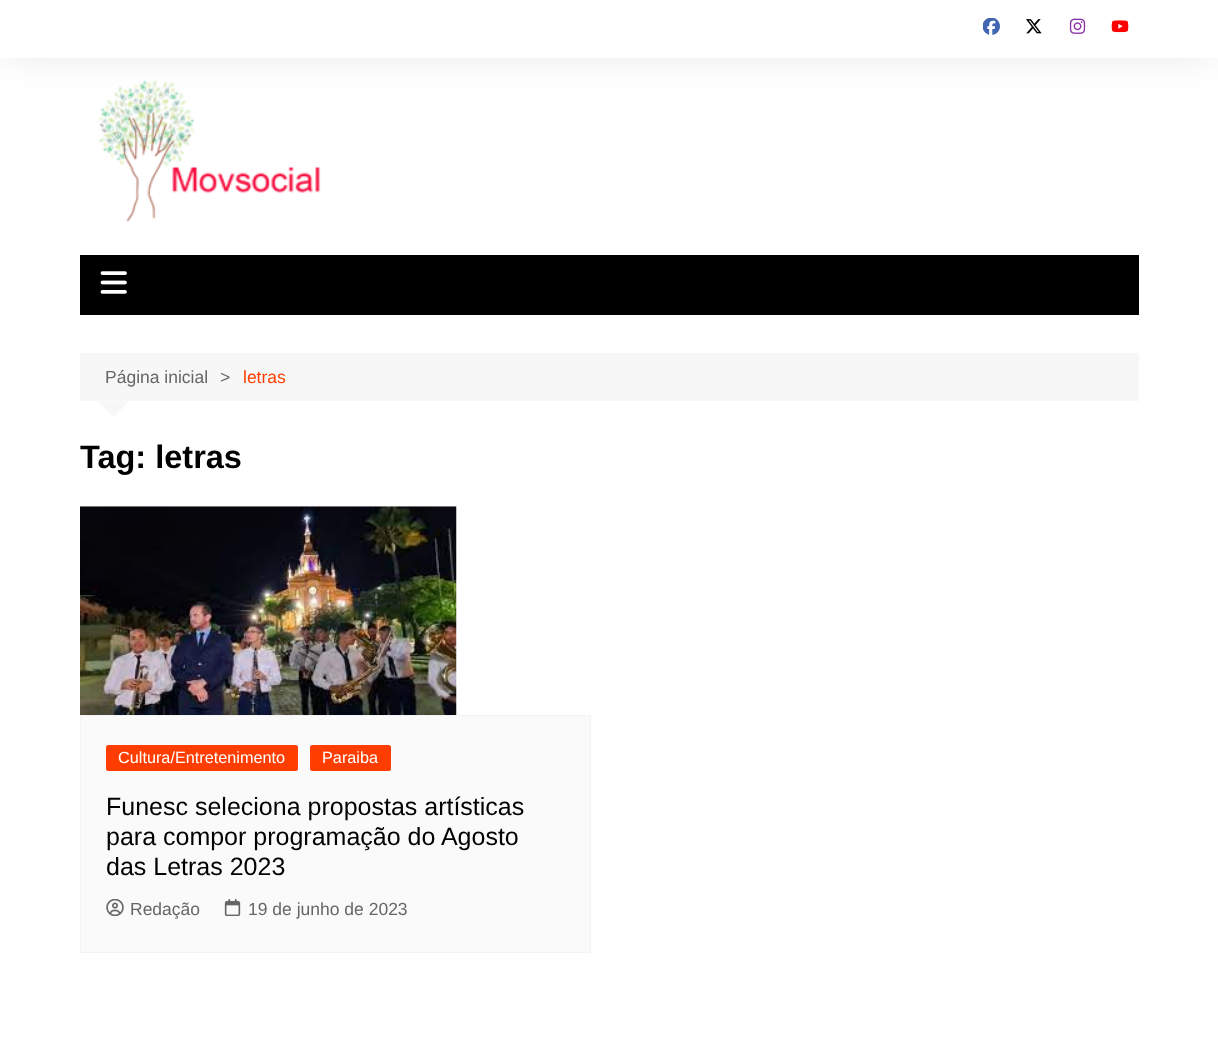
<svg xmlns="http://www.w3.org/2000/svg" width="1218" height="1045">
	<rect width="100%" height="100%" fill="#FFFFFF" />
	<rect x="6" y="9" width="1207" height="45" fill="#000000" fill-opacity="0.1" filter="blur(19px)" />
	<rect x="0" y="0" width="1218" height="58" fill="#FFFFFF" />
	<image x="983" y="18" width="17" height="17" href="assets/img1.png" />
	<image x="1026" y="19" width="16" height="15" href="assets/img2.png" />
	<image x="1069" y="18" width="17" height="16" href="assets/img3.png" />
	<image x="1111" y="20" width="18" height="13" href="assets/img4.png" />
	<image x="98" y="80" width="223" height="142" href="assets/img5.png" />
	<rect x="80" y="255" width="1059" height="60" fill="#000000" />
	<image x="100" y="271" width="27" height="23" href="assets/img6.png" />
	<rect x="80" y="353" width="1059" height="48" fill="#F7F7F7" />
	<g font-family="Liberation Sans" font-size="17.5" fill="#666666">
		<text x="105" y="383">Página inicial</text>
		<text x="220" y="383">&gt;</text>
	</g>
	<text x="243" y="383" font-family="Liberation Sans" font-size="17.5" fill="#FF3D00">letras</text>
	<path d="M98.5 401.5H128.5L113.5 417.5Z" fill="#F7F7F7" />
	<text x="80" y="468" font-family="Liberation Sans" font-size="32.5" font-weight="700" fill="#010101">Tag: letras</text>
	<image x="80" y="506" width="377" height="209" href="assets/img7.png" />
	<rect x="80.5" y="715.5" width="510" height="237" fill="#FAFAFA" stroke="#F3F3F3" />
	<rect x="106" y="745" width="192" height="26" rx="2.5" fill="#FF3D00" />
	<text x="118" y="763" font-family="Liberation Sans" font-size="16.25" fill="#FFFFFF">Cultura/Entretenimento</text>
	<rect x="310" y="745" width="81" height="26" rx="2.5" fill="#FF3D00" />
	<text x="322" y="763" font-family="Liberation Sans" font-size="16.25" fill="#FFFFFF">Paraiba</text>
	<g font-family="Liberation Sans" font-size="25" fill="#010101">
		<text x="106" y="815">Funesc seleciona propostas artísticas</text>
		<text x="106" y="845">para compor programação do Agosto</text>
		<text x="106" y="875">das Letras 2023</text>
	</g>
	<image x="106" y="899" width="18" height="17" href="assets/img8.png" />
	<text x="130" y="915" font-family="Liberation Sans" font-size="17.5" fill="#666666">Redação</text>
	<image x="224" y="899" width="17" height="17" href="assets/img9.png" />
	<text x="248" y="915" font-family="Liberation Sans" font-size="17.5" fill="#666666">19 de junho de 2023</text>
</svg>
